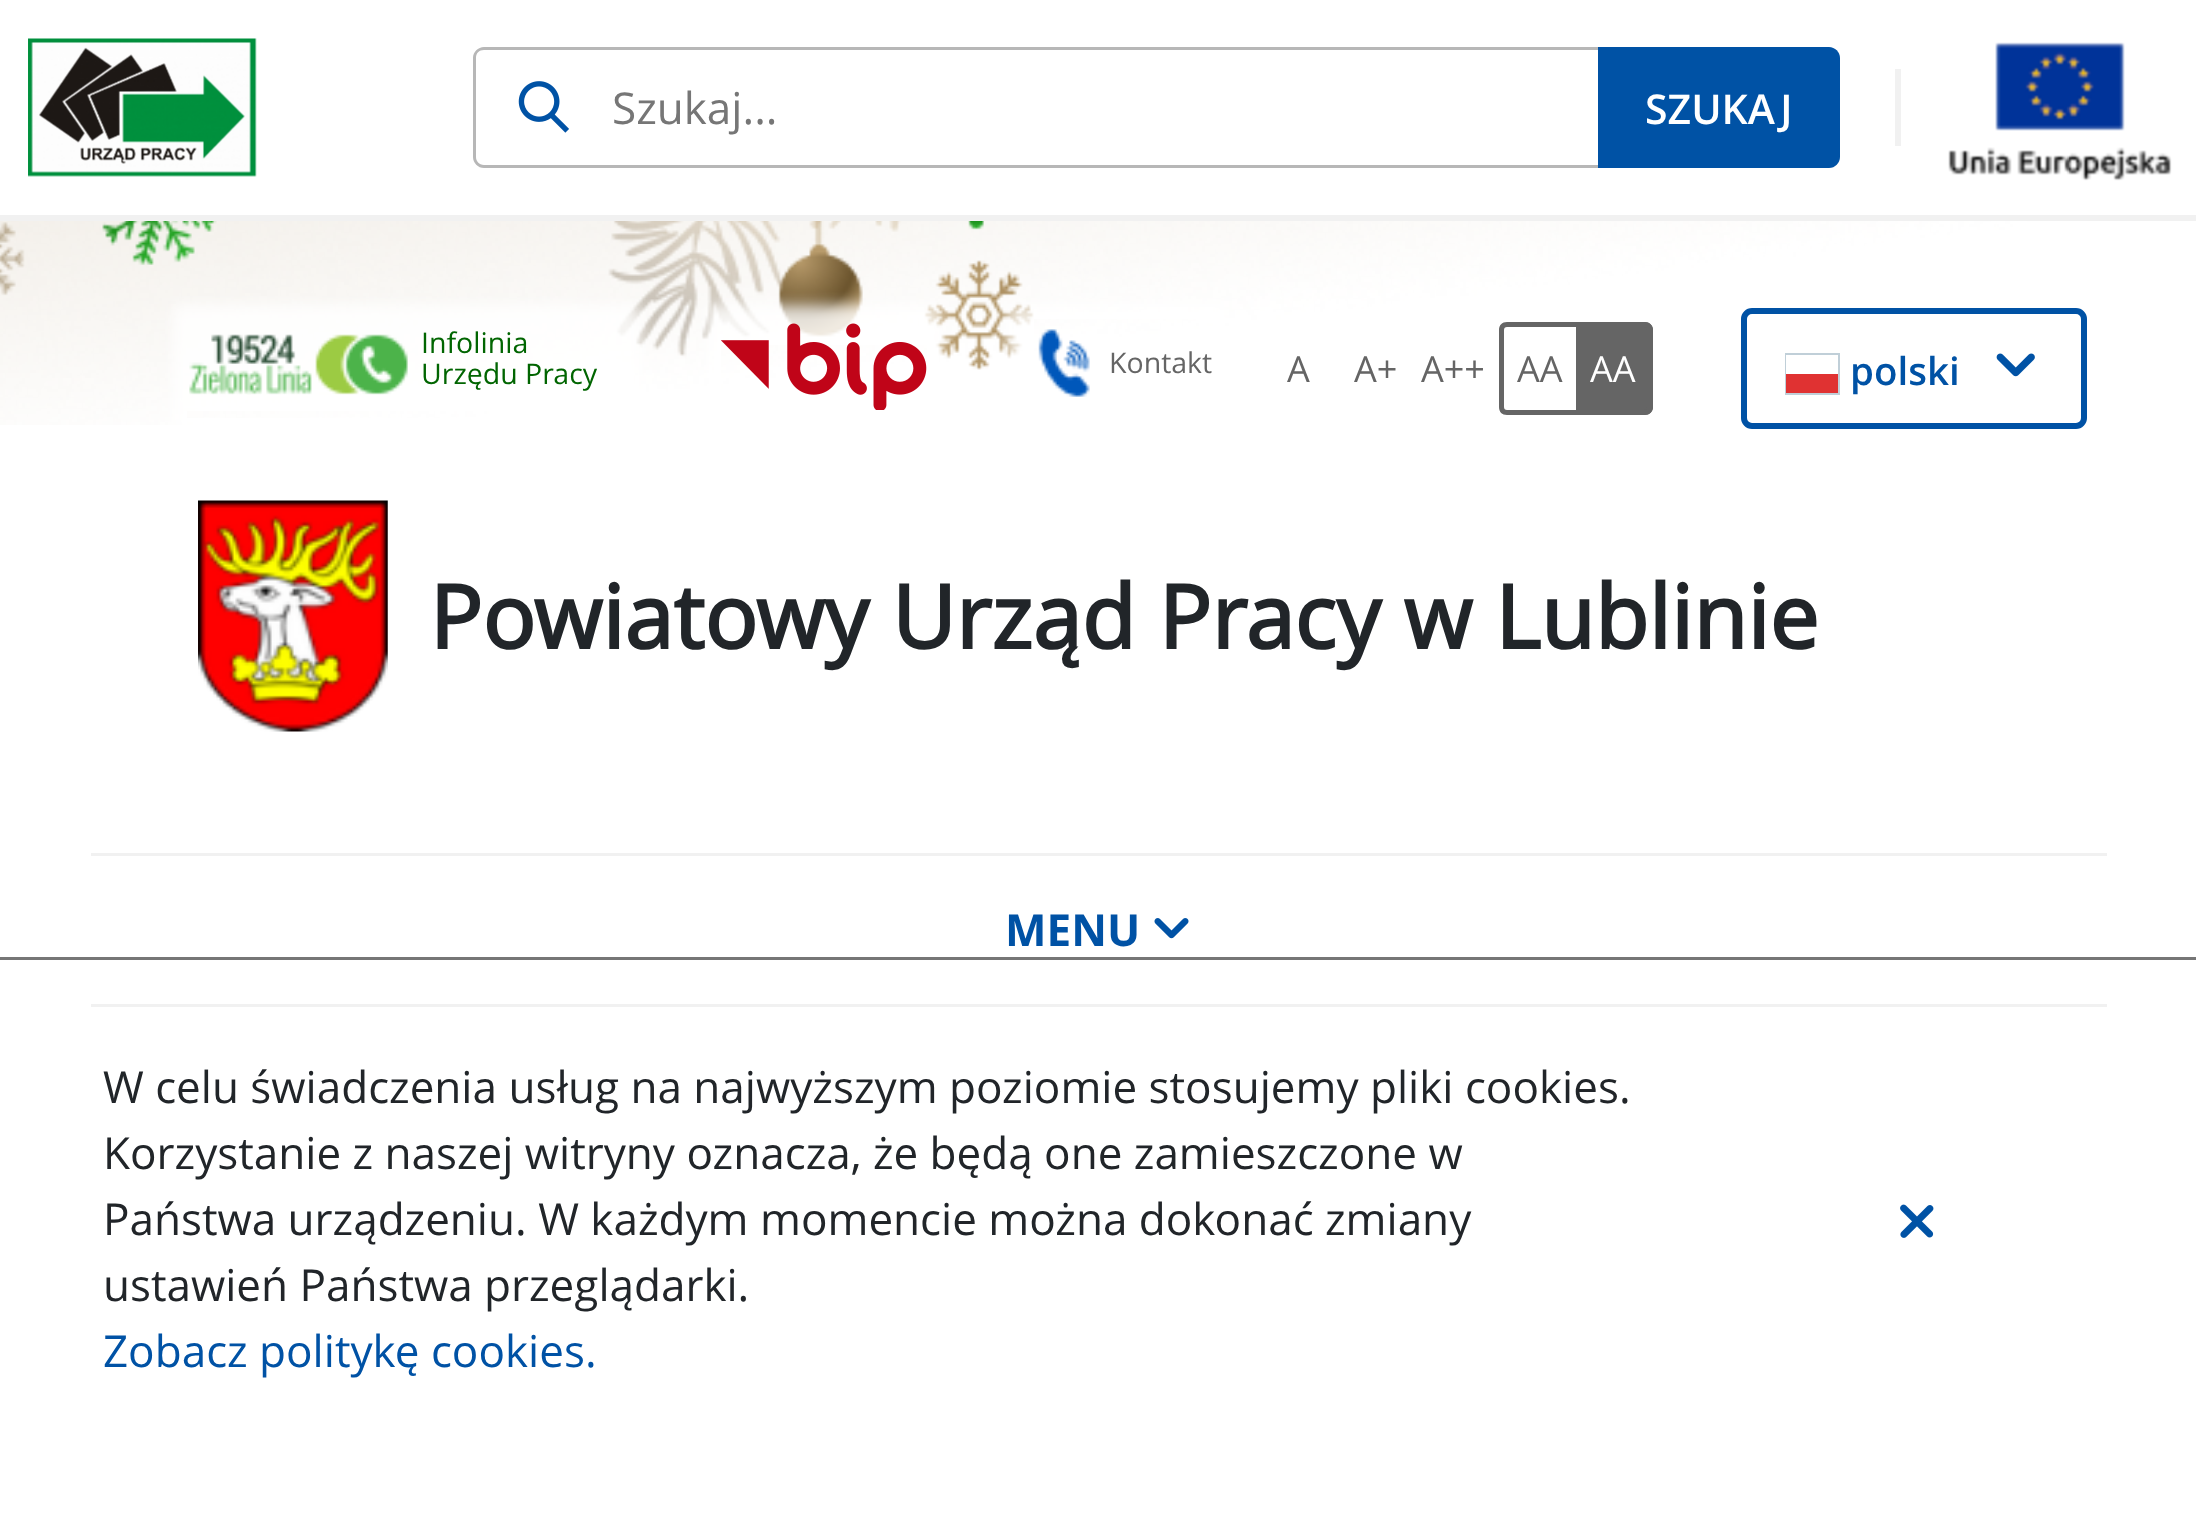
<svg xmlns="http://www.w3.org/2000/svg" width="2196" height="1515">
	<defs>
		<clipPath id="clip1"><path d="M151 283H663V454H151ZM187 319H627V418H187Z" clip-rule="evenodd" /></clipPath>
		<clipPath id="clip2"><path d="M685 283H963V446H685ZM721 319H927V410H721Z" clip-rule="evenodd" /></clipPath>
		<clipPath id="clip3"><path d="M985 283H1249V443H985ZM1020 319H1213V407H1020Z" clip-rule="evenodd" /></clipPath>
	</defs>
	<rect width="100%" height="100%" fill="#FFFFFF" />
	<rect x="0" y="215" width="2196" height="6" fill="#F1F1F1" />
	<image x="28" y="38" width="229" height="139" href="assets/img1.png" />
	<image x="518" y="81" width="51" height="52" href="assets/img2.png" />
	<path d="M484 47H1598V168H484C478 168 473 163 473 157V58C473 52 478 47 484 47ZM484 50H1598V165H484C479 165 476 161 476 157V58C476 53 479 50 484 50Z" fill="#B7B7B7" fill-rule="evenodd" />
	<text x="612" y="124" font-family="Open Sans" font-size="44" fill="#767676">Szukaj...</text>
	<path d="M1598 47H1829C1835 47 1840 52 1840 58V157C1840 163 1835 168 1829 168H1598Z" fill="#0052A5" />
	<text x="1645" y="124" font-family="Open Sans" font-size="41" font-weight="600" fill="#FFFFFF">SZUKAJ</text>
	<rect x="1895" y="69" width="6" height="77" fill="#F1F1F1" />
	<image x="1948" y="42" width="224" height="139" href="assets/img3.png" />
	<image x="0" y="221" width="2046" height="204" href="assets/img9.png" />
	<g clip-path="url(#clip1)">
		<rect x="173" y="305" width="468" height="127" fill="#FFFFFF" fill-opacity="0.8" filter="blur(7px)" />
	</g>
	<rect x="187" y="319" width="440" height="92" fill="#FFFFFF" fill-opacity="0.8" />
	<image x="189" y="334" width="219" height="61" href="assets/img4.png" />
	<g font-family="Open Sans" font-size="28.5" fill="#016501">
		<text x="421" y="353">Infolinia</text>
		<text x="421" y="384">Urzędu Pracy</text>
	</g>
	<g clip-path="url(#clip2)">
		<rect x="707" y="305" width="234" height="119" fill="#FFFFFF" fill-opacity="0.8" filter="blur(7px)" />
	</g>
	<rect x="721" y="319" width="206" height="26" fill="#FFFFFF" fill-opacity="0.8" />
	<image x="721" y="323" width="206" height="87" href="assets/img5.png" />
	<g clip-path="url(#clip3)">
		<rect x="1007" y="305" width="220" height="116" fill="#FFFFFF" fill-opacity="0.8" filter="blur(7px)" />
	</g>
	<rect x="1020" y="319" width="14" height="31" fill="#FFFFFF" fill-opacity="0.8" />
	<image x="1038" y="329" width="52" height="68" href="assets/img6.png" />
	<text x="1109" y="373" font-family="Open Sans" font-size="28.5" fill="#656565">Kontakt</text>
	<g font-family="Open Sans" font-size="36" fill="#656565">
		<text x="1287" y="382">A</text>
		<text x="1354" y="382">A+</text>
		<text x="1421" y="382">A++</text>
	</g>
	<path d="M1507 322H1576V415H1507C1502 415 1499 412 1499 407V330C1499 325 1502 322 1507 322ZM1507 327H1576V410H1507C1505 410 1504 409 1504 407V330C1504 328 1505 327 1507 327Z" fill="#656565" fill-rule="evenodd" />
	<text x="1517" y="382" font-family="Open Sans" font-size="36" fill="#656565">AA</text>
	<path d="M1576 322H1645C1649.5 322 1653 325.5 1653 330V407C1653 411.5 1649.5 415 1645 415H1576Z" fill="#656565" />
	<path d="M1576 322H1644C1649 322 1653 325 1653 330V407C1653 412 1649 415 1644 415H1576ZM1576 327H1644C1646 327 1647 328 1647 330V407C1647 409 1646 410 1644 410H1576Z" fill="#656565" fill-rule="evenodd" />
	<text x="1590" y="382" font-family="Open Sans" font-size="36" fill="#FFFFFF">AA</text>
	<rect x="1744" y="311" width="340" height="115" rx="8" fill="none" stroke="#0052A5" stroke-width="6" />
	<text x="1850" y="385" font-family="Open Sans" font-size="38.5" font-weight="600" fill="#0052A5">polski</text>
	<rect x="1785" y="353" width="55" height="42" fill="#C0CFD8" />
	<rect x="1786" y="355" width="52" height="19" fill="#FFFFFF" />
	<rect x="1786" y="374" width="52" height="19" fill="#E03232" />
	<image x="1996" y="353" width="39" height="24" href="assets/img7.png" />
	<image x="198" y="500" width="190" height="232" href="assets/img8.png" />
	<text x="429" y="649" font-family="Open Sans" font-size="88" font-weight="700" fill="#212529">Powiatowy Urząd Pracy w Lublinie</text>
	<rect x="91" y="853" width="2016" height="3" fill="#F1F1F1" />
	<rect x="91" y="1004" width="2016" height="3" fill="#F1F1F1" />
	<text x="1005" y="946" font-family="'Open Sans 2'" font-size="44" font-weight="700" fill="#0052A5">MENU</text>
	<image x="1154" y="918" width="35" height="21" href="assets/img10.png" />
	<rect x="0" y="957" width="2196" height="3" fill="#767676" />
	<g font-family="Open Sans" font-size="44" fill="#212529">
		<text x="103" y="1103">W celu świadczenia usług na najwyższym poziomie stosujemy pliki cookies.</text>
		<text x="103" y="1169">Korzystanie z naszej witryny oznacza, że będą one zamieszczone w</text>
		<text x="103" y="1235">Państwa urządzeniu. W każdym momencie można dokonać zmiany</text>
		<text x="103" y="1301">ustawień Państwa przeglądarki.</text>
	</g>
	<text x="103" y="1367" font-family="Open Sans" font-size="44" fill="#0052A5">Zobacz politykę cookies.</text>
	<image x="1900" y="1204" width="34" height="34" href="assets/img11.png" />
</svg>
